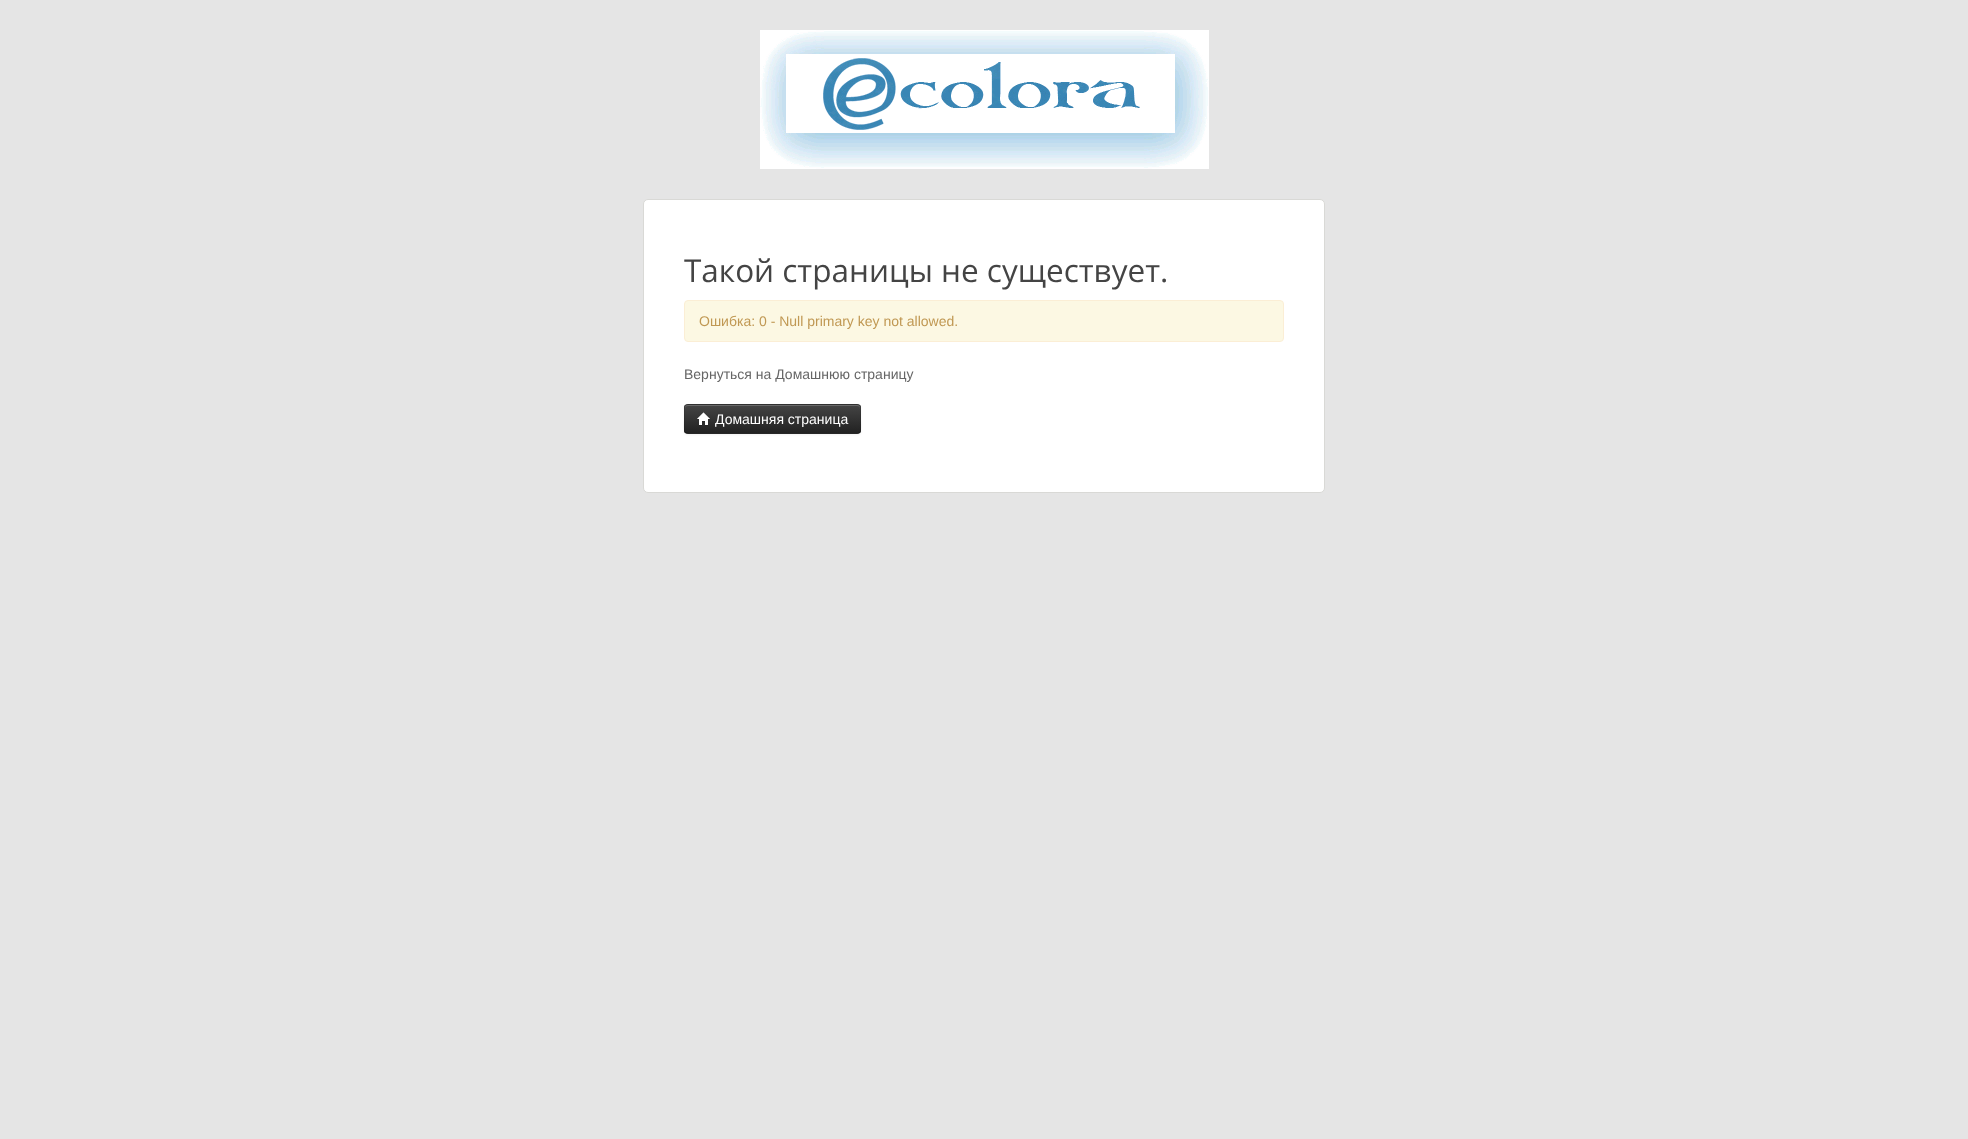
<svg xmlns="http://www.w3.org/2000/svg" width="1968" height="1139">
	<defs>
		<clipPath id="clip1"><rect x="684" y="404" width="177" height="30" rx="4" /></clipPath>
		<linearGradient id="g1" gradientUnits="userSpaceOnUse" x1="773" y1="405" x2="773" y2="433"><stop offset="0" stop-color="#444444" /><stop offset="1" stop-color="#222222" /></linearGradient>
	</defs>
	<rect width="100%" height="100%" fill="#E5E5E5" />
	<image x="760" y="30" width="449" height="139" href="assets/img1.png" />
	<rect x="643.5" y="199.5" width="681" height="293" rx="4.5" fill="#FFFFFF" stroke="#D9D9D6" />
	<text x="684" y="282" font-family="Open Sans" font-size="31.5" fill="#444444">Такой страницы не существует.</text>
	<rect x="684.5" y="300.5" width="599" height="41" rx="3.5" fill="#FCF8E3" stroke="#FBEED5" />
	<text x="699" y="326" font-family="Liberation Sans" font-size="14" fill="#C09853">Ошибка: 0 - Null primary key not allowed.</text>
	<text x="684" y="379" font-family="Liberation Sans" font-size="14" fill="#666666">Вернуться на Домашнюю страницу</text>
	<rect x="684" y="405" width="177" height="30" rx="4" fill="#000000" fill-opacity="0.05" filter="blur(1px)" />
	<rect x="684" y="404" width="177" height="30" rx="4" fill="#363636" />
	<g clip-path="url(#clip1)">
		<rect x="684" y="405" width="177" height="28" fill="url(#g1)" />
	</g>
	<path d="M688 406H857C859 406 860 407 860 409V408C860 406 859 405 857 405H688C686 405 685 406 685 408V409C685 407 686 406 688 406Z" fill="#696969" />
	<path d="M859.5 432.5L857.5 433.5H716H688L685.5 432.5" fill="none" stroke="#000000" stroke-opacity="0.25" />
	<path d="M685.5 432.5C683.5 430.5 684.5 422 684.5 419V411.5C684.5 409 684 404.5 688 404.5H857C861 404.5 860.5 409 860.5 411.5V419C860.5 422 861.5 430.5 859.5 432.5" fill="none" stroke="#000000" stroke-opacity="0.1" />
	<image x="697" y="412" width="13" height="14" href="assets/img2.png" />
	<text x="715" y="424" font-family="Liberation Sans" font-size="14" fill="#FFFFFF">Домашняя страница</text>
</svg>
